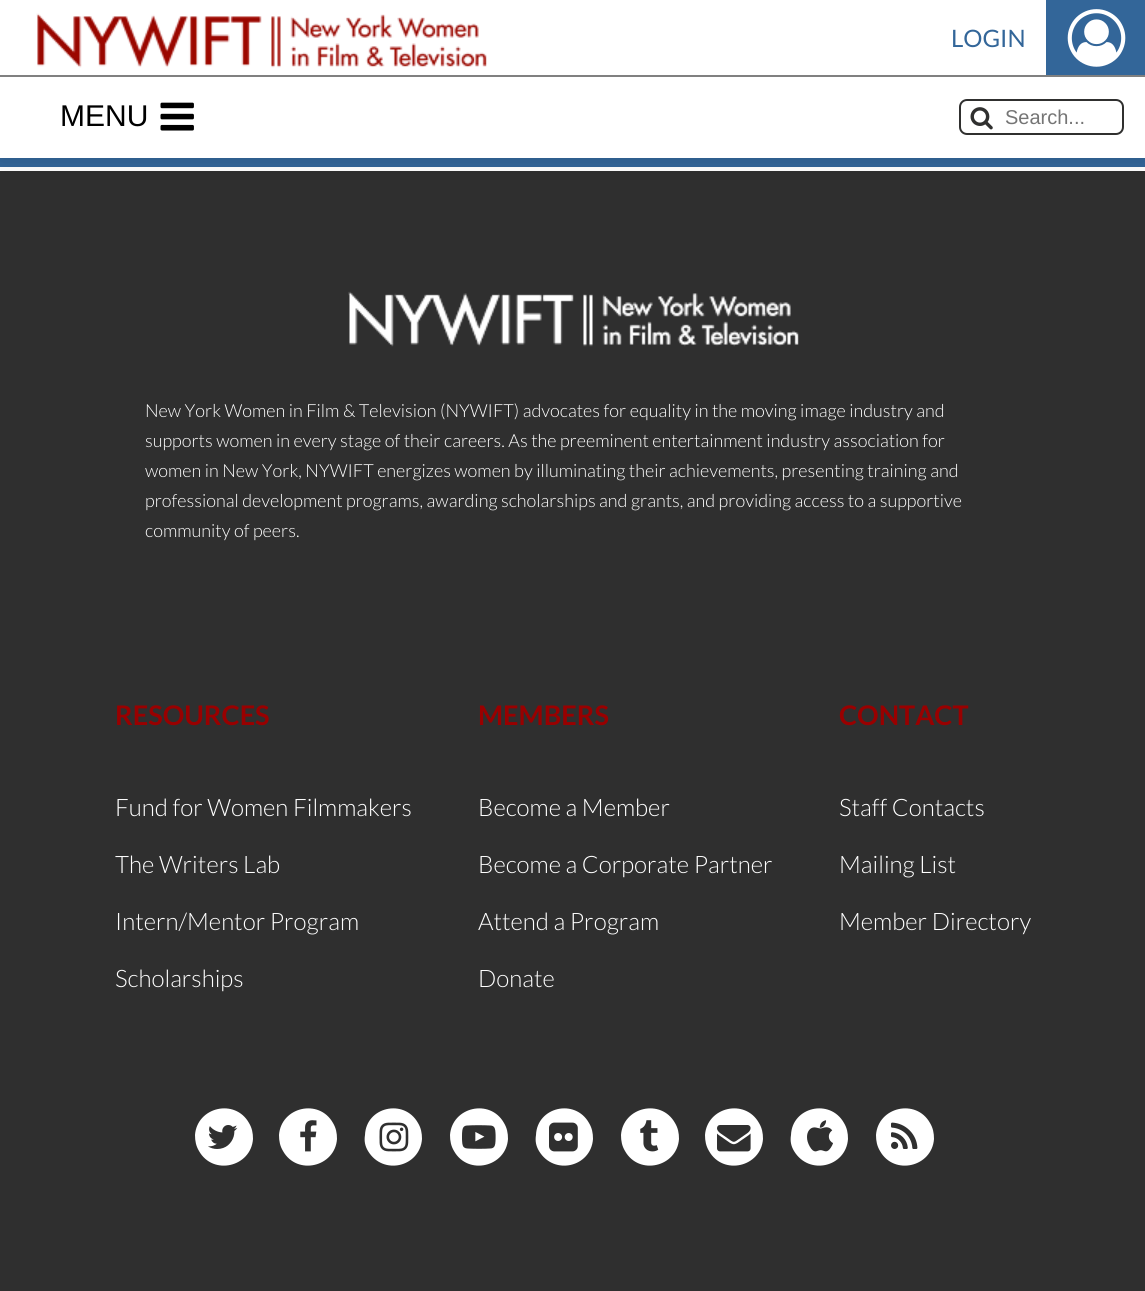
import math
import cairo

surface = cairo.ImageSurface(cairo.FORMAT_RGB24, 1145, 1291)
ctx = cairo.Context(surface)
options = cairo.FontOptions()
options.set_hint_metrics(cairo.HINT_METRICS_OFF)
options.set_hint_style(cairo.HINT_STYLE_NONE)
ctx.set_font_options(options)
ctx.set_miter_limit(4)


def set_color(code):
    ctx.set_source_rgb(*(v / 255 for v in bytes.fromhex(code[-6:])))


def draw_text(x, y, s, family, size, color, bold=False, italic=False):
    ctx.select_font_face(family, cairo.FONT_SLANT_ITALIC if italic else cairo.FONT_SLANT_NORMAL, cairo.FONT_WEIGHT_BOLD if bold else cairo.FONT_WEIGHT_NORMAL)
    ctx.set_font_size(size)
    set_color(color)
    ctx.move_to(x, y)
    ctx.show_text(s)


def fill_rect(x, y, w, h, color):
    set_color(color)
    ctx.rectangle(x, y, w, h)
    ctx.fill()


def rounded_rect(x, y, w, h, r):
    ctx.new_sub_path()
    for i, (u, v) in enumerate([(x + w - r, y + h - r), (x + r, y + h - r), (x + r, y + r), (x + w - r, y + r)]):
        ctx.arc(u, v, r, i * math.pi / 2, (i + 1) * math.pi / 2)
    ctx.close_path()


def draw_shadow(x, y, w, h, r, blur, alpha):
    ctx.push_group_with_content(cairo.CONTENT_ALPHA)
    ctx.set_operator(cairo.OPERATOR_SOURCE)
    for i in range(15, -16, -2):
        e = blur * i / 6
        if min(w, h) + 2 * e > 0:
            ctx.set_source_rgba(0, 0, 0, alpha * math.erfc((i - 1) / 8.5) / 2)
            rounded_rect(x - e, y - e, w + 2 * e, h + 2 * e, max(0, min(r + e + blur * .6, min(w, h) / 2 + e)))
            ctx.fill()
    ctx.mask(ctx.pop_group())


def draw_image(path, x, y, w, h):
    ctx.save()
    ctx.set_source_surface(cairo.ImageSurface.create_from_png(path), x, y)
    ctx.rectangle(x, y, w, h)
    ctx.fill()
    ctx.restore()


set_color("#ffffff")
ctx.paint()
fill_rect(0, 158, 1145, 9, "#336699")
fill_rect(0, 171, 1145, 1120, "#2f2f2f")
set_color("#040404")
draw_shadow(0, 0, 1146, 158, 0, 11, 0.15)
fill_rect(0, 0, 1145, 158, "#ffffff")
fill_rect(0, 75, 1145, 2, "#808080")
draw_image("assets/img1.png", 36, 13, 451, 55)
draw_text(951, 47, "LOGIN", "Lato", 24, "#336699")
fill_rect(1046, 0, 99, 75, "#336699")
draw_image("assets/img2.png", 1067, 9, 59, 58)
draw_text(60, 126, "MENU", "Liberation Sans", 30, "#000000")
draw_image("assets/img3.png", 160, 102, 34, 29)
rounded_rect(960, 100, 163, 34, 7)
set_color("#30302f")
ctx.stroke()
draw_image("assets/img4.png", 970, 107, 23, 23)
draw_text(1005, 124, "Search...", "Liberation Sans", 20, "#757575")
draw_image("assets/img5.png", 348, 291, 451, 56)
draw_text(145, 417, "New York Women in Film & Television (NYWIFT) advocates for equality in the moving image industry and", "Lato Light", 18, "#ffffff")
draw_text(145, 447, "supports women in every stage of their careers. As the preeminent entertainment industry association for", "Lato Light", 18, "#ffffff")
draw_text(145, 477, "women in New York, NYWIFT energizes women by illuminating their achievements, presenting training and", "Lato Light", 18, "#ffffff")
draw_text(145, 507, "professional development programs, awarding scholarships and grants, and providing access to a supportive", "Lato Light", 18, "#ffffff")
draw_text(145, 537, "community of peers.", "Lato Light", 18, "#ffffff")
draw_text(115, 725, "RESOURCES", "Lato", 27, "#990000", bold=True)
draw_text(115, 816, "Fund for Women Filmmakers", "Lato Light", 24, "#ffffff")
draw_text(115, 873, "The Writers Lab", "Lato Light", 24, "#ffffff")
draw_text(115, 930, "Intern/Mentor Program", "Lato Light", 24, "#ffffff")
draw_text(115, 987, "Scholarships", "Lato Light", 24, "#ffffff")
draw_text(478, 725, "MEMBERS", "Lato", 27, "#990000", bold=True)
draw_text(478, 816, "Become a Member", "Lato Light", 24, "#ffffff")
draw_text(478, 873, "Become a Corporate Partner", "Lato Light", 24, "#ffffff")
draw_text(478, 930, "Attend a Program", "Lato Light", 24, "#ffffff")
draw_text(478, 987, "Donate", "Lato Light", 24, "#ffffff")
draw_text(839, 725, "CONTACT", "Lato", 27, "#990000", bold=True)
draw_text(839, 816, "Staff Contacts", "Lato Light", 24, "#ffffff")
draw_text(839, 873, "Mailing List", "Lato Light", 24, "#ffffff")
draw_text(839, 930, "Member Directory", "Lato Light", 24, "#ffffff")
ctx.new_path()
ctx.move_to(249, 1123)
ctx.curve_to(252, 1128, 253, 1133, 253, 1139)
ctx.curve_to(251, 1167, 213, 1176, 199, 1151)
ctx.curve_to(196, 1146, 195, 1141, 195, 1135)
ctx.curve_to(197, 1107, 235, 1098, 249, 1123)
ctx.close_path()
ctx.fill()
draw_image("assets/img6.png", 208, 1125, 30, 24)
ctx.new_path()
ctx.move_to(333, 1123)
ctx.curve_to(336, 1128, 337, 1133, 337, 1139)
ctx.curve_to(335, 1167, 297, 1176, 283, 1151)
ctx.curve_to(280, 1146, 279, 1141, 279, 1135)
ctx.curve_to(281, 1107, 319, 1098, 333, 1123)
ctx.close_path()
ctx.fill()
draw_image("assets/img7.png", 300, 1120, 17, 32)
ctx.new_path()
ctx.move_to(418, 1123)
ctx.curve_to(421, 1128, 422, 1133, 422, 1139)
ctx.curve_to(420, 1167, 383, 1176, 368, 1151)
ctx.curve_to(365, 1146, 364, 1141, 365, 1135)
ctx.curve_to(366, 1107, 404, 1098, 418, 1123)
ctx.close_path()
ctx.fill()
draw_image("assets/img8.png", 379, 1122, 30, 30)
ctx.new_path()
ctx.move_to(504, 1123)
ctx.curve_to(507, 1128, 508, 1133, 508, 1139)
ctx.curve_to(506, 1167, 468, 1176, 454, 1151)
ctx.curve_to(451, 1146, 450, 1141, 450, 1135)
ctx.curve_to(452, 1107, 490, 1098, 504, 1123)
ctx.close_path()
ctx.fill()
draw_image("assets/img9.png", 462, 1125, 34, 24)
ctx.new_path()
ctx.move_to(589, 1123)
ctx.curve_to(592, 1128, 593, 1133, 593, 1139)
ctx.curve_to(591, 1167, 554, 1176, 539, 1151)
ctx.curve_to(536, 1146, 535, 1141, 536, 1135)
ctx.curve_to(537, 1107, 575, 1098, 589, 1123)
ctx.close_path()
ctx.fill()
draw_image("assets/img10.png", 549, 1122, 29, 30)
ctx.new_path()
ctx.move_to(675, 1123)
ctx.curve_to(678, 1128, 679, 1133, 679, 1139)
ctx.curve_to(677, 1167, 639, 1176, 625, 1151)
ctx.curve_to(622, 1146, 621, 1141, 621, 1135)
ctx.curve_to(623, 1107, 661, 1098, 675, 1123)
ctx.close_path()
ctx.fill()
draw_image("assets/img11.png", 640, 1120, 19, 32)
ctx.new_path()
ctx.move_to(759, 1123)
ctx.curve_to(762, 1128, 763, 1133, 763, 1139)
ctx.curve_to(761, 1167, 723, 1176, 709, 1151)
ctx.curve_to(706, 1146, 705, 1141, 705, 1135)
ctx.curve_to(707, 1107, 745, 1098, 759, 1123)
ctx.close_path()
ctx.fill()
draw_image("assets/img12.png", 717, 1125, 34, 27)
ctx.new_path()
ctx.move_to(844, 1123)
ctx.curve_to(847, 1128, 848, 1133, 848, 1139)
ctx.curve_to(846, 1167, 809, 1176, 794, 1151)
ctx.curve_to(791, 1146, 790, 1141, 791, 1135)
ctx.curve_to(792, 1107, 830, 1098, 844, 1123)
ctx.close_path()
ctx.fill()
draw_image("assets/img13.png", 807, 1120, 26, 32)
ctx.new_path()
ctx.move_to(930, 1123)
ctx.curve_to(933, 1128, 934, 1133, 934, 1139)
ctx.curve_to(932, 1167, 894, 1176, 880, 1151)
ctx.curve_to(877, 1146, 876, 1141, 876, 1135)
ctx.curve_to(878, 1107, 916, 1098, 930, 1123)
ctx.close_path()
ctx.fill()
draw_image("assets/img14.png", 891, 1122, 27, 27)
surface.write_to_png("output.png")
